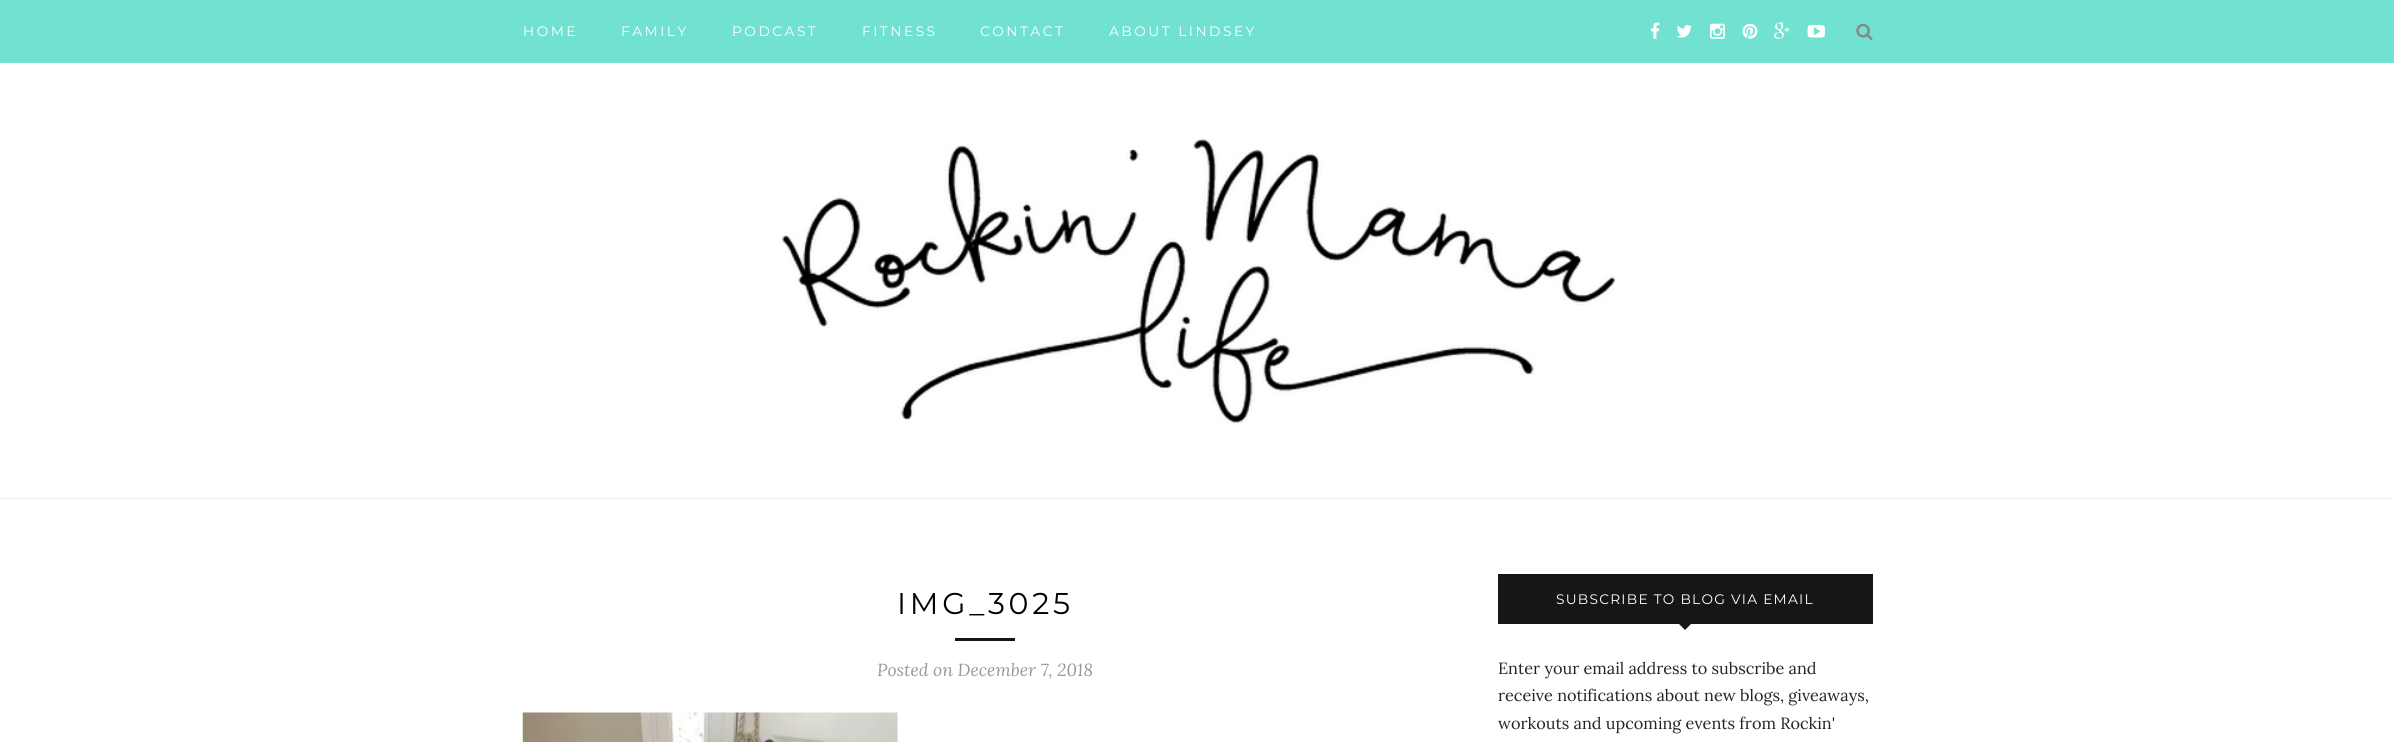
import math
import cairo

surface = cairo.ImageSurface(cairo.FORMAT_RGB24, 2394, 742)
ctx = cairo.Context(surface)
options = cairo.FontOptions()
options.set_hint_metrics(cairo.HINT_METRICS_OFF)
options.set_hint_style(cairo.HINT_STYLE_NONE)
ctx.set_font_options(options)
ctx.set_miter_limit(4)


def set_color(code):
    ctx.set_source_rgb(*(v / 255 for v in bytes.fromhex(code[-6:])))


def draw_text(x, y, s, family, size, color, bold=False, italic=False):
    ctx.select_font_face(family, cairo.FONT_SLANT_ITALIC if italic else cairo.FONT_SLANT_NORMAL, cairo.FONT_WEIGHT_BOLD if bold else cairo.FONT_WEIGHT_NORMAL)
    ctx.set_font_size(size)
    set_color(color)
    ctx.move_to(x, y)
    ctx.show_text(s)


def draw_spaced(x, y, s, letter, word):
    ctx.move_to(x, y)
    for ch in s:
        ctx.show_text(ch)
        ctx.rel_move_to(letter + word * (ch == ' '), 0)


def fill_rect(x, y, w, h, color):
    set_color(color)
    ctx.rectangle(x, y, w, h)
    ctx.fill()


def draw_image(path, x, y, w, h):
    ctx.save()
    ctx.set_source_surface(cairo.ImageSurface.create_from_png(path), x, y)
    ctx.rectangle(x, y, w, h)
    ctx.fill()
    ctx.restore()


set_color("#ffffff")
ctx.paint()
fill_rect(0, 0, 2394, 63, "#71e2d1")
ctx.select_font_face("Montserrat")
ctx.set_font_size(13.75)
set_color("#ffffff")
draw_spaced(523, 36, "HOME", 2.5, 0)
draw_spaced(621, 36, "FAMILY", 2.5, 0)
draw_spaced(732, 36, "PODCAST", 2.5, 0)
draw_spaced(862, 36, "FITNESS", 2.5, 0)
draw_spaced(980, 36, "CONTACT", 2.5, 0)
draw_spaced(1109, 36, "ABOUT LINDSEY", 2.5, 0)
draw_image("assets/img1.png", 1650, 22, 10, 17)
draw_image("assets/img2.png", 1676, 25, 16, 13)
draw_image("assets/img3.png", 1710, 23, 15, 16)
draw_image("assets/img4.png", 1742, 23, 16, 16)
draw_image("assets/img5.png", 1774, 22, 16, 17)
draw_image("assets/img6.png", 1807, 25, 18, 13)
draw_image("assets/img7.png", 1856, 23, 17, 17)
fill_rect(0, 498, 2394, 1, "#eeeeee")
draw_image("assets/img8.png", 780, 138, 836, 287)
ctx.set_font_size(30)
set_color("#000000")
draw_spaced(897, 614, "IMG_3025", 3.75, 0)
fill_rect(955, 638, 60, 3, "#161616")
draw_text(877, 676, "Posted on December 7, 2018", "Lora", 17.5, "#999999", italic=True)
draw_image("assets/img9.png", 522, 712, 376, 30)
fill_rect(1498, 574, 375, 50, "#161616")
ctx.select_font_face("Montserrat")
ctx.set_font_size(13.75)
set_color("#ffffff")
draw_spaced(1556, 604, "SUBSCRIBE TO BLOG VIA EMAIL", 1.25, 0)
set_color("#161616")
ctx.new_path()
ctx.move_to(1679, 624)
ctx.line_to(1691, 624)
ctx.line_to(1685, 630)
ctx.close_path()
ctx.fill()
draw_text(1498, 674, "Enter your email address to subscribe and", "Lora", 16.25, "#242424")
draw_text(1498, 701, "receive notifications about new blogs, giveaways,", "Lora", 16.25, "#242424")
draw_text(1498, 729, "workouts and upcoming events from Rockin'", "Lora", 16.25, "#242424")
surface.write_to_png("output.png")
